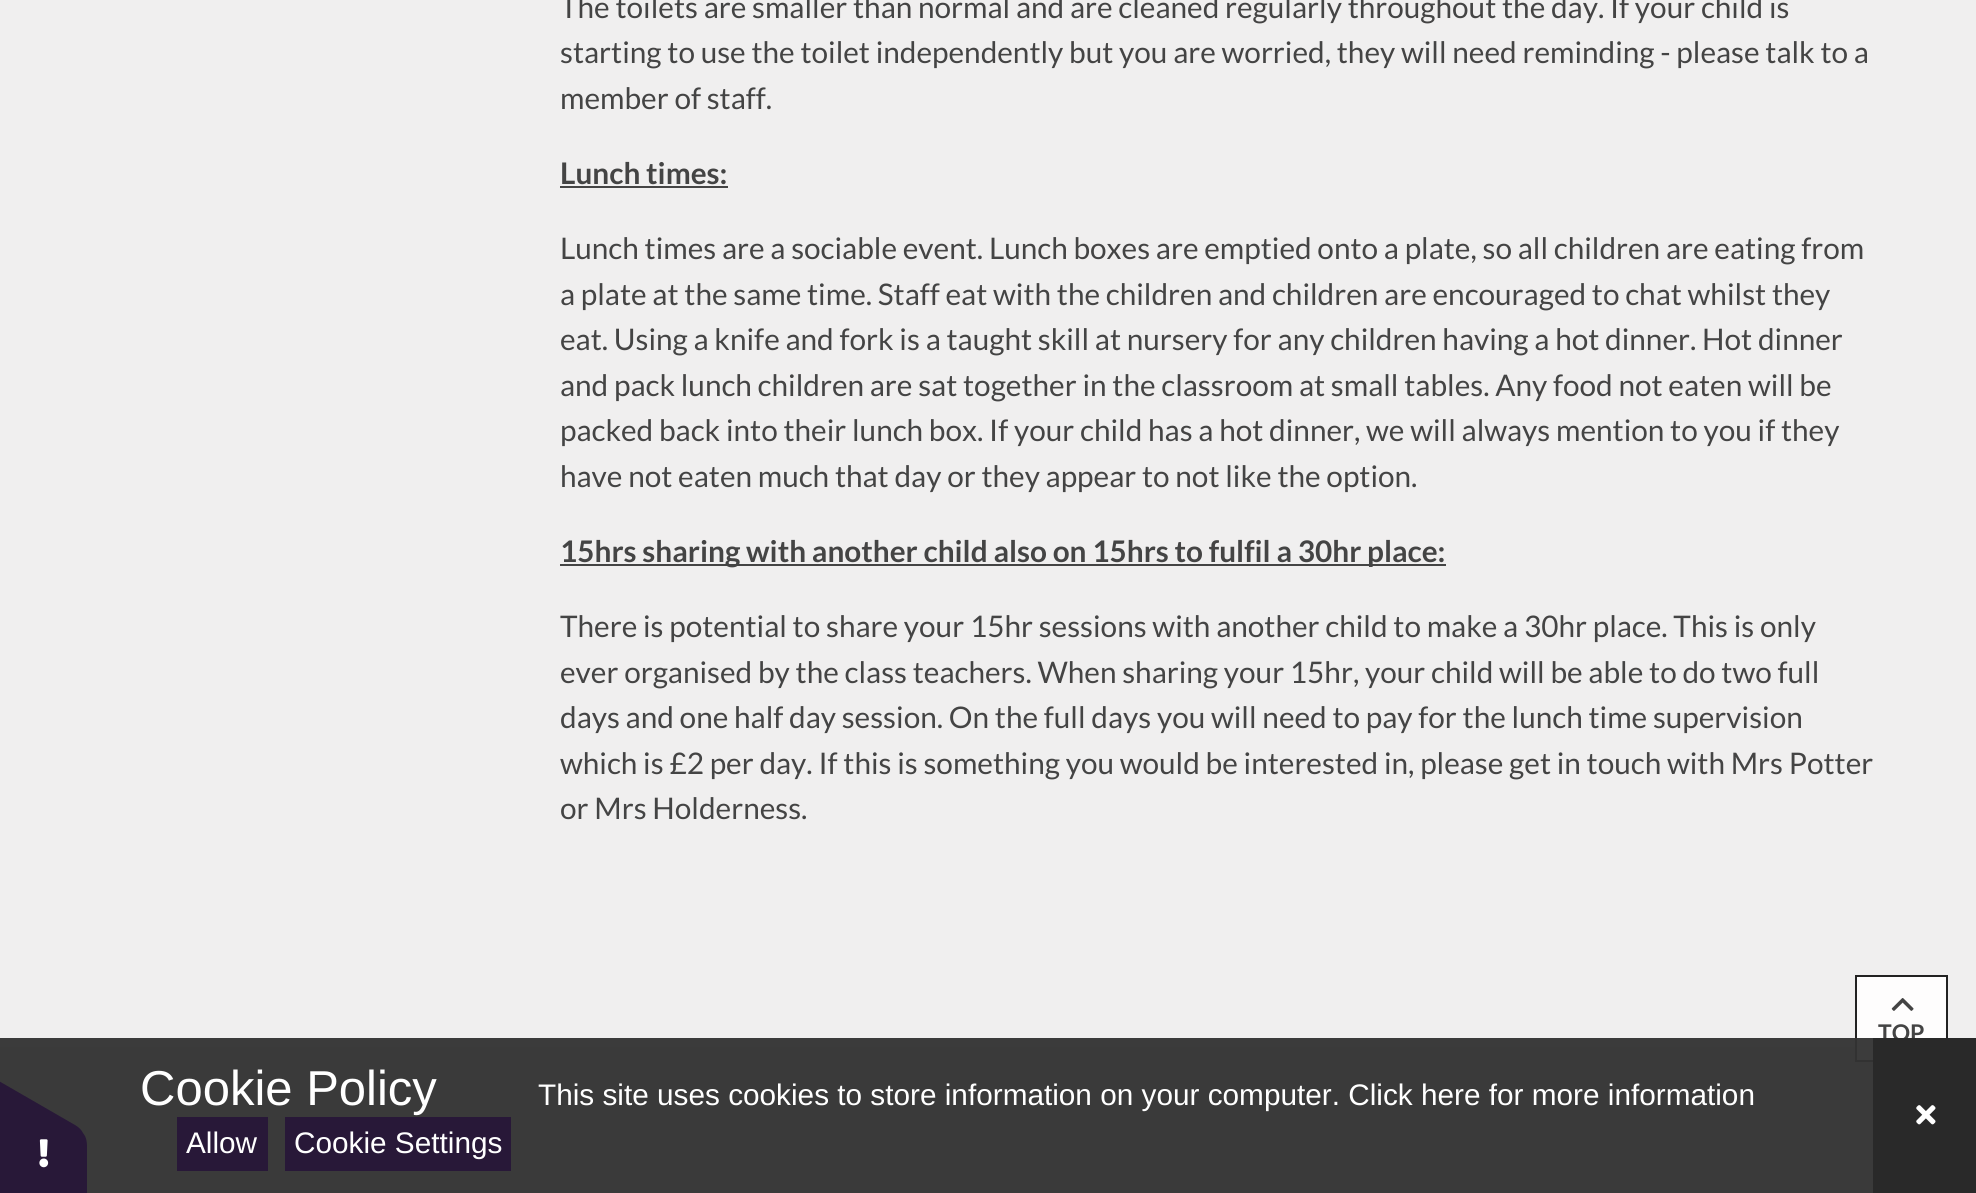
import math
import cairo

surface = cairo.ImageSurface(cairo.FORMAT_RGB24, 1976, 1193)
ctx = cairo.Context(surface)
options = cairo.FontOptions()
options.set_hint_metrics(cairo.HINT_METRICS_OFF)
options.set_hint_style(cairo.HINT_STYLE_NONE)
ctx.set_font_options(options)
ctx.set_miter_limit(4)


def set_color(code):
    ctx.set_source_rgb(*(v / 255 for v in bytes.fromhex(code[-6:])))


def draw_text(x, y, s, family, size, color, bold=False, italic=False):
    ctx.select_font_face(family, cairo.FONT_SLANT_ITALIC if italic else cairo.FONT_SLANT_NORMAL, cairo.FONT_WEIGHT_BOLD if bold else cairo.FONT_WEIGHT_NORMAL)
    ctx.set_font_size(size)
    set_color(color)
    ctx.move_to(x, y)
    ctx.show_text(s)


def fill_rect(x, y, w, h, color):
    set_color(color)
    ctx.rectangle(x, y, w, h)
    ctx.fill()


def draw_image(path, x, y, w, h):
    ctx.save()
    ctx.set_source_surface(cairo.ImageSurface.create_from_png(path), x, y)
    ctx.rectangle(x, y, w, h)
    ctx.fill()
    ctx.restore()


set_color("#f0efef")
ctx.paint()
fill_rect(1857, 977, 89, 70, "#fefdfd")
draw_text(560, 18, "The toilets are smaller than normal and are cleaned regularly throughout the day. If your child is", "Lato", 29.75, "#444444")
draw_text(560, 63, "starting to use the toilet independently but you are worried, they will need reminding - please talk to a", "Lato", 29.75, "#444444")
draw_text(560, 109, "member of staff.", "Lato", 29.75, "#444444")
draw_text(560, 184, "Lunch times:", "Lato", 29.75, "#444444", bold=True)
fill_rect(560, 186, 168, 2, "#444444")
draw_text(560, 259, "Lunch times are a sociable event. Lunch boxes are emptied onto a plate, so all children are eating from", "Lato", 29.75, "#444444")
draw_text(560, 305, "a plate at the same time. Staff eat with the children and children are encouraged to chat whilst they", "Lato", 29.75, "#444444")
draw_text(560, 350, "eat. Using a knife and fork is a taught skill at nursery for any children having a hot dinner. Hot dinner", "Lato", 29.75, "#444444")
draw_text(560, 396, "and pack lunch children are sat together in the classroom at small tables. Any food not eaten will be", "Lato", 29.75, "#444444")
draw_text(560, 441, "packed back into their lunch box. If your child has a hot dinner, we will always mention to you if they", "Lato", 29.75, "#444444")
draw_text(560, 487, "have not eaten much that day or they appear to not like the option.", "Lato", 29.75, "#444444")
fill_rect(560, 564, 886, 2, "#444444")
draw_text(560, 562, "15hrs sharing with another child also on 15hrs to fulfil a 30hr place:", "Lato", 29.75, "#444444", bold=True)
draw_text(560, 637, "There is potential to share your 15hr sessions with another child to make a 30hr place. This is only", "Lato", 29.75, "#444444")
draw_text(560, 683, "ever organised by the class teachers. When sharing your 15hr, your child will be able to do two full", "Lato", 29.75, "#444444")
draw_text(560, 728, "days and one half day session. On the full days you will need to pay for the lunch time supervision", "Lato", 29.75, "#444444")
draw_text(560, 774, "which is £2 per day. If this is something you would be interested in, please get in touch with Mrs Potter", "Lato", 29.75, "#444444")
draw_text(560, 819, "or Mrs Holderness.", "Lato", 29.75, "#444444")
fill_rect(0, 1047, 1873, 146, "#d9d9d9")
fill_rect(1857, 1047, 16, 13, "#fbfbfb")
ctx.rectangle(1856, 976, 91, 85)
set_color("#222222")
ctx.stroke()
draw_image("assets/img1.png", 1891, 998, 23, 13)
draw_text(1878, 1041, "TOP", "Lato", 23, "#444444", bold=True)
ctx.set_source_rgba(0.2, 0.2, 0.2, 0.95)
ctx.rectangle(0, 1038, 1873, 155)
ctx.fill()
set_color("#281838")
ctx.new_path()
ctx.move_to(87, 1146)
ctx.line_to(87, 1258)
ctx.curve_to(87, 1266, 84, 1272, 80, 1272)
ctx.line_to(-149, 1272)
ctx.curve_to(-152, 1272, -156, 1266, -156, 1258)
ctx.line_to(-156, 1146)
ctx.curve_to(-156, 1138, -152, 1132, -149, 1132)
ctx.line_to(80, 1132)
ctx.curve_to(84, 1132, 87, 1138, 87, 1146)
ctx.close_path()
ctx.fill()
ctx.new_path()
ctx.move_to(-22, 1069)
ctx.line_to(75, 1125)
ctx.curve_to(82, 1129, 85, 1135, 83, 1138)
ctx.line_to(-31, 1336)
ctx.curve_to(-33, 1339, -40, 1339, -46, 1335)
ctx.line_to(-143, 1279)
ctx.curve_to(-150, 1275, -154, 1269, -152, 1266)
ctx.line_to(-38, 1068)
ctx.curve_to(-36, 1065, -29, 1065, -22, 1069)
ctx.close_path()
ctx.fill()
draw_image("assets/img2.png", 39, 1139, 10, 29)
draw_text(140, 1105, "Cookie Policy", "Liberation Sans", 49, "#ffffff")
draw_text(538, 1105, "This site uses cookies to store information on your computer. Click here for more information", "Liberation Sans", 29.75, "#ffffff")
fill_rect(177, 1117, 91, 54, "#281838")
draw_text(186, 1153, "Allow", "Liberation Sans", 29.75, "#ffffff")
fill_rect(285, 1117, 226, 54, "#281838")
draw_text(294, 1153, "Cookie Settings", "Liberation Sans", 29.75, "#ffffff")
fill_rect(1873, 1038, 103, 155, "#292929")
draw_image("assets/img3.png", 1916, 1105, 20, 20)
surface.write_to_png("output.png")
